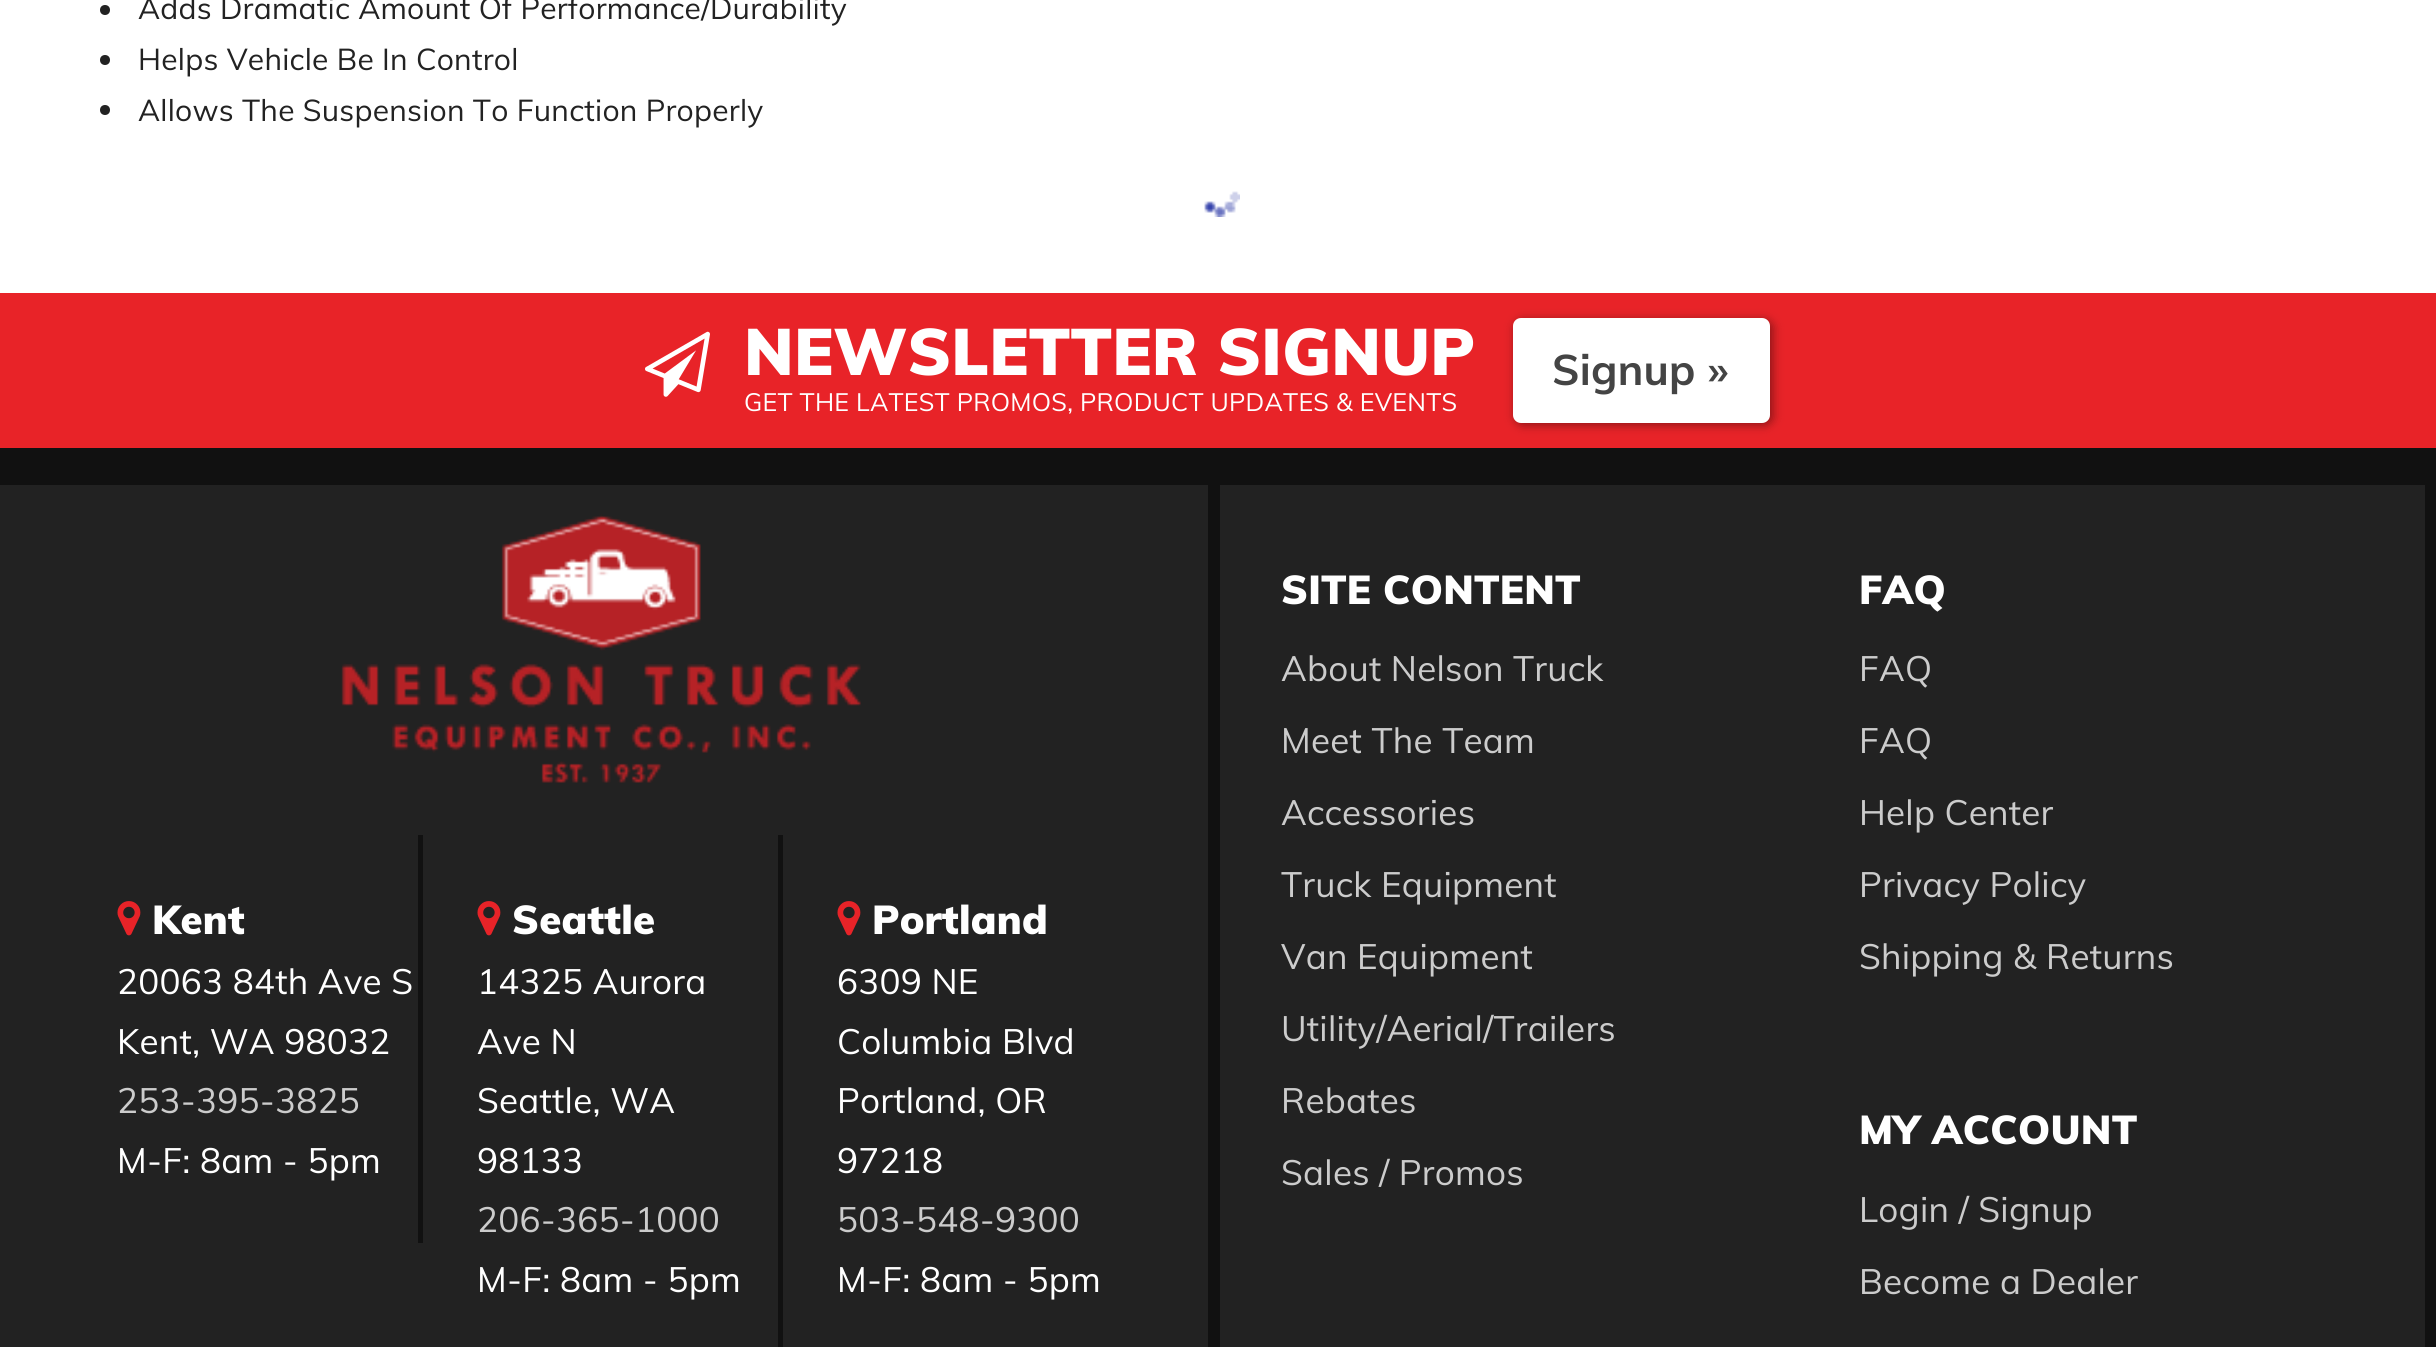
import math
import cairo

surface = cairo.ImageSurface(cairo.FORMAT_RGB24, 2436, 1347)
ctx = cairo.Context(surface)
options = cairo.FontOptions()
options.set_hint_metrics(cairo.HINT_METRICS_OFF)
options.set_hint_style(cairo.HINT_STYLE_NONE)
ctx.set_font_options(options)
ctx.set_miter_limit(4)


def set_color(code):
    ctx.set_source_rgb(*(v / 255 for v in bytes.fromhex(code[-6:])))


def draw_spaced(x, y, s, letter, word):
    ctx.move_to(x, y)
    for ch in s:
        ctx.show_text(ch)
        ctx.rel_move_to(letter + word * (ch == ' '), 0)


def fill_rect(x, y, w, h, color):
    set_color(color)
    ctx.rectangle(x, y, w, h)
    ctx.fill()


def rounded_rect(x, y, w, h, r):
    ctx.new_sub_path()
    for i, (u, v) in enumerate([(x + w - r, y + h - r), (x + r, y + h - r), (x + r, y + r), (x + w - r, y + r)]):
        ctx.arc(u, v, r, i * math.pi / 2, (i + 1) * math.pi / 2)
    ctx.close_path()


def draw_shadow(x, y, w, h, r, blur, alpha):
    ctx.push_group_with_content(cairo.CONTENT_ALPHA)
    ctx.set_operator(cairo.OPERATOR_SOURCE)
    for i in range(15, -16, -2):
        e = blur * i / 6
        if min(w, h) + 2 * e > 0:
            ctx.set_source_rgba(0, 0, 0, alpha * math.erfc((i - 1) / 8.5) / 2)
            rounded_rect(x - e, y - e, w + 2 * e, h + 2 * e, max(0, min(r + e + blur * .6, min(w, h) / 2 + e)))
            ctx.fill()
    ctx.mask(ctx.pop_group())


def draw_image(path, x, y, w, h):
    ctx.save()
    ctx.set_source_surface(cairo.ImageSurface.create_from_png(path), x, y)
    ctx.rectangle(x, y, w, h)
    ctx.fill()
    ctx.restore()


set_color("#ffffff")
ctx.paint()
set_color("#222222")
ctx.arc(105, 10, 5, 0, 2 * math.pi)
ctx.fill()
ctx.select_font_face("Muli")
ctx.set_font_size(30)
draw_spaced(138, 19, "Adds Dramatic Amount Of Performance/Durability", 0.25, 0)
ctx.new_path()
ctx.arc(105, 60, 5, 0, 2 * math.pi)
ctx.fill()
draw_spaced(138, 70, "Helps Vehicle Be In Control", 0.25, 0)
ctx.new_path()
ctx.arc(105, 110, 5, 0, 2 * math.pi)
ctx.fill()
draw_spaced(138, 121, "Allows The Suspension To Function Properly", 0.25, 0)
draw_image("assets/img1.png", 1204, 191, 36, 26)
fill_rect(0, 448, 2436, 37, "#111111")
fill_rect(0, 293, 2436, 155, "#e82328")
draw_image("assets/img2.png", 645, 331, 65, 66)
ctx.select_font_face("Muli Black")
ctx.set_font_size(65)
set_color("#ffffff")
draw_spaced(744, 375, "NEWSLETTER SIGNUP", 0.25, 0)
ctx.select_font_face("Muli")
ctx.set_font_size(25)
draw_spaced(744, 411, "GET THE LATEST PROMOS, PRODUCT UPDATES & EVENTS", 0.25, 0)
set_color("#000000")
draw_shadow(1515, 320, 258, 105, 8, 5, 0.4)
set_color("#ffffff")
rounded_rect(1513, 318, 257, 105, 8)
ctx.fill()
ctx.select_font_face("Muli", cairo.FONT_SLANT_NORMAL, cairo.FONT_WEIGHT_BOLD)
ctx.set_font_size(42.5)
set_color("#444444")
draw_spaced(1552, 385, "Signup »", 0.25, 0)
fill_rect(0, 485, 1208, 862, "#222222")
fill_rect(1208, 485, 12, 862, "#111111")
draw_image("assets/img3.png", 341, 514, 520, 269)
fill_rect(418, 835, 5, 408, "#111111")
draw_image("assets/img4.png", 117, 901, 24, 35)
ctx.select_font_face("Muli Black")
ctx.set_font_size(40)
set_color("#ffffff")
draw_spaced(152, 934, "Kent", 0.25, 0)
ctx.select_font_face("Muli")
ctx.set_font_size(35)
draw_spaced(117, 994, "20063 84th Ave S", 0.25, 0)
draw_spaced(117, 1054, "Kent, WA 98032", 0.25, 0)
set_color("#cccccc")
draw_spaced(117, 1113, "253-395-3825", 0.25, 0)
set_color("#ffffff")
draw_spaced(117, 1173, "M-F: 8am - 5pm", 0.25, 0)
fill_rect(778, 835, 5, 512, "#111111")
draw_image("assets/img4.png", 477, 901, 24, 35)
ctx.select_font_face("Muli Black")
ctx.set_font_size(40)
set_color("#ffffff")
draw_spaced(512, 934, "Seattle", 0.25, 0)
ctx.select_font_face("Muli")
ctx.set_font_size(35)
draw_spaced(477, 994, "14325 Aurora", 0.25, 0)
draw_spaced(477, 1054, "Ave N", 0.25, 0)
draw_spaced(477, 1113, "Seattle, WA", 0.25, 0)
draw_spaced(477, 1173, "98133", 0.25, 0)
set_color("#cccccc")
draw_spaced(477, 1232, "206-365-1000", 0.25, 0)
set_color("#ffffff")
draw_spaced(477, 1292, "M-F: 8am - 5pm", 0.25, 0)
draw_image("assets/img4.png", 837, 901, 24, 35)
ctx.select_font_face("Muli Black")
ctx.set_font_size(40)
draw_spaced(872, 934, "Portland", 0.25, 0)
ctx.select_font_face("Muli")
ctx.set_font_size(35)
draw_spaced(837, 994, "6309 NE", 0.25, 0)
draw_spaced(837, 1054, "Columbia Blvd", 0.25, 0)
draw_spaced(837, 1113, "Portland, OR", 0.25, 0)
draw_spaced(837, 1173, "97218", 0.25, 0)
set_color("#cccccc")
draw_spaced(837, 1232, "503-548-9300", 0.25, 0)
set_color("#ffffff")
draw_spaced(837, 1292, "M-F: 8am - 5pm", 0.25, 0)
fill_rect(1220, 485, 1205, 862, "#222222")
fill_rect(2425, 485, 11, 862, "#111111")
ctx.select_font_face("Muli Black")
ctx.set_font_size(40)
set_color("#ffffff")
draw_spaced(1281, 604, "SITE CONTENT", 0.25, 0)
ctx.select_font_face("Muli")
ctx.set_font_size(35)
set_color("#cccccc")
draw_spaced(1281, 681, "About Nelson Truck", 0.25, 0)
draw_spaced(1281, 753, "Meet The Team", 0.25, 0)
draw_spaced(1281, 825, "Accessories", 0.25, 0)
draw_spaced(1281, 897, "Truck Equipment", 0.25, 0)
draw_spaced(1281, 969, "Van Equipment", 0.25, 0)
draw_spaced(1281, 1041, "Utility/Aerial/Trailers", 0.25, 0)
draw_spaced(1281, 1113, "Rebates", 0.25, 0)
draw_spaced(1281, 1185, "Sales / Promos", 0.25, 0)
ctx.select_font_face("Muli Black")
ctx.set_font_size(40)
set_color("#ffffff")
draw_spaced(1859, 604, "FAQ", 0.25, 0)
ctx.select_font_face("Muli")
ctx.set_font_size(35)
set_color("#cccccc")
draw_spaced(1859, 681, "FAQ", 0.25, 0)
draw_spaced(1859, 753, "FAQ", 0.25, 0)
draw_spaced(1859, 825, "Help Center", 0.25, 0)
draw_spaced(1859, 897, "Privacy Policy", 0.25, 0)
draw_spaced(1859, 969, "Shipping & Returns", 0.25, 0)
ctx.select_font_face("Muli Black")
ctx.set_font_size(40)
set_color("#ffffff")
draw_spaced(1859, 1144, "MY ACCOUNT", 0.25, 0)
ctx.select_font_face("Muli")
ctx.set_font_size(35)
set_color("#cccccc")
draw_spaced(1859, 1222, "Login / Signup", 0.25, 0)
draw_spaced(1859, 1294, "Become a Dealer", 0.25, 0)
surface.write_to_png("output.png")
